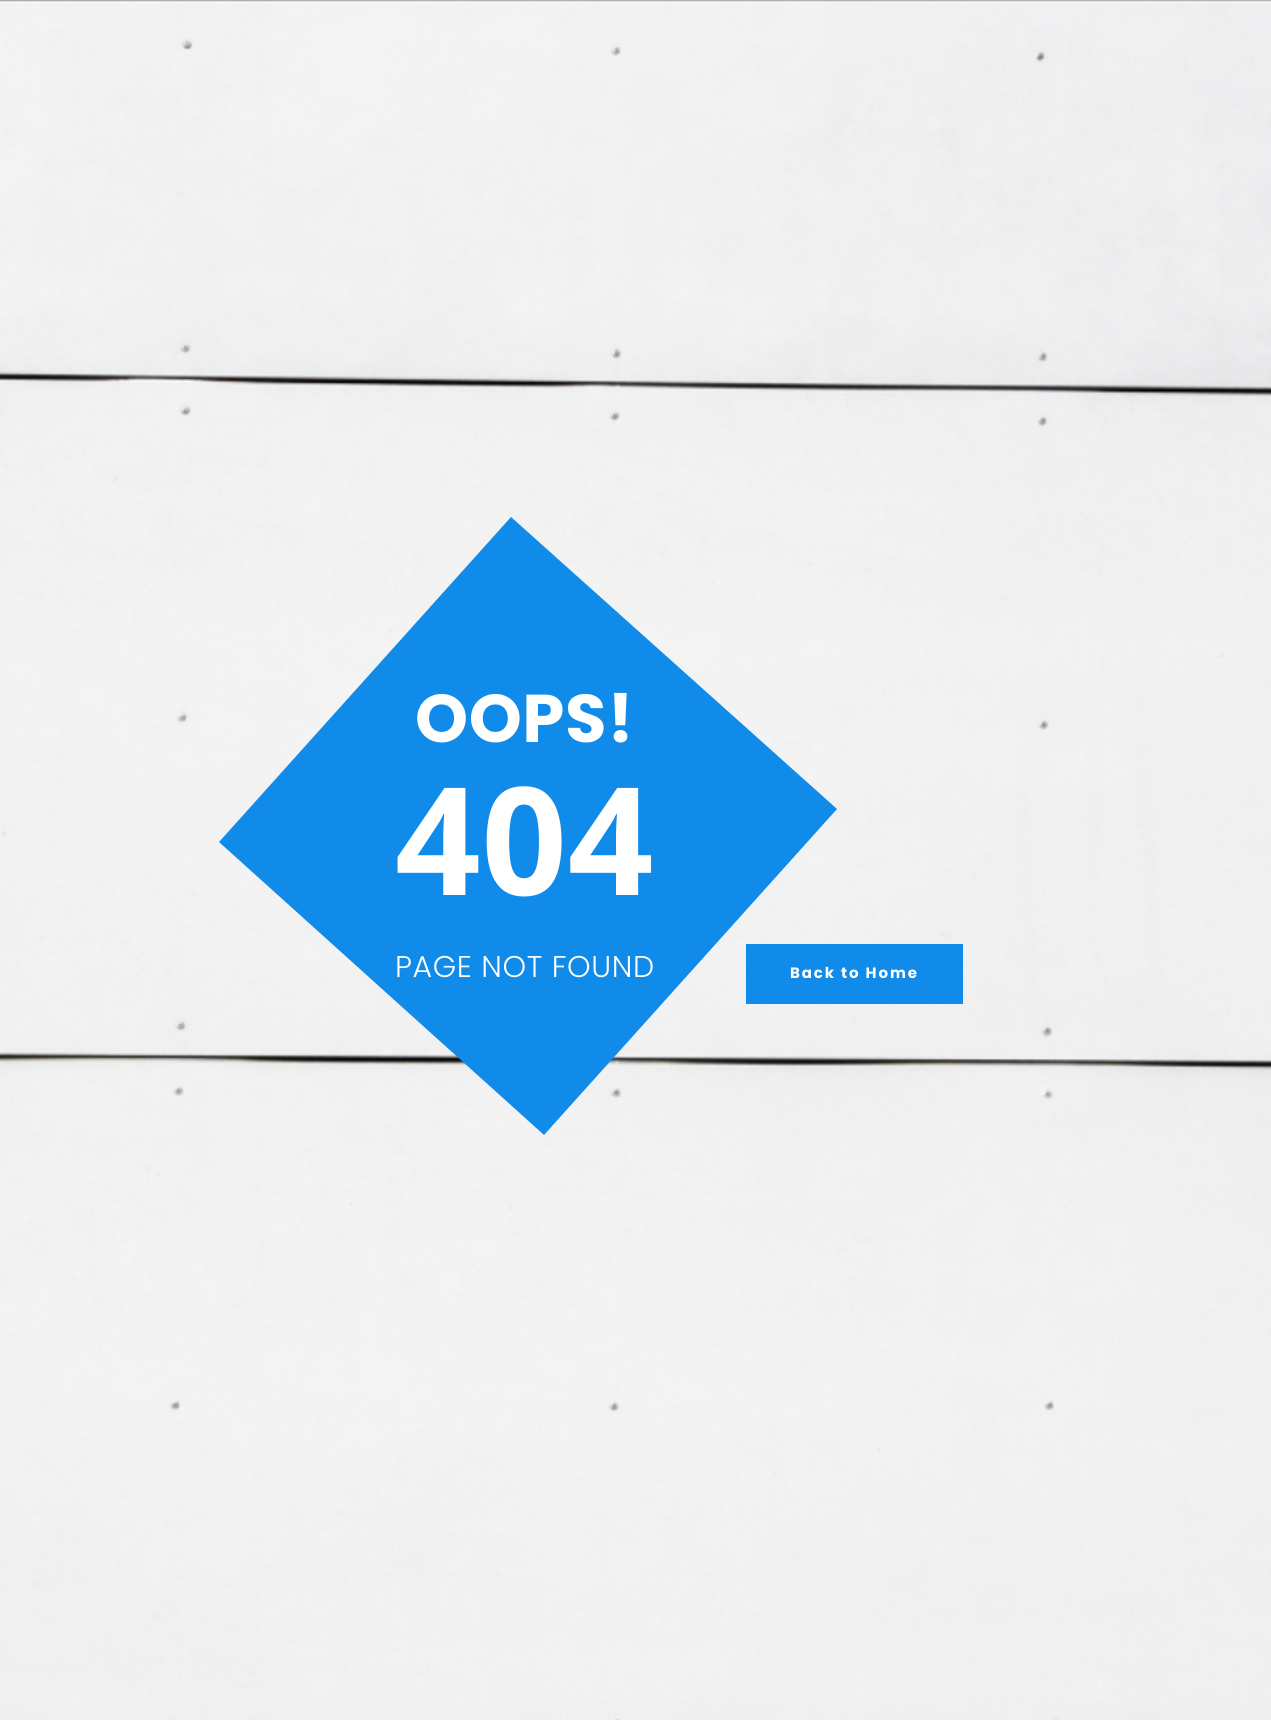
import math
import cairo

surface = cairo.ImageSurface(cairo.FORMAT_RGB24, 1271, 1720)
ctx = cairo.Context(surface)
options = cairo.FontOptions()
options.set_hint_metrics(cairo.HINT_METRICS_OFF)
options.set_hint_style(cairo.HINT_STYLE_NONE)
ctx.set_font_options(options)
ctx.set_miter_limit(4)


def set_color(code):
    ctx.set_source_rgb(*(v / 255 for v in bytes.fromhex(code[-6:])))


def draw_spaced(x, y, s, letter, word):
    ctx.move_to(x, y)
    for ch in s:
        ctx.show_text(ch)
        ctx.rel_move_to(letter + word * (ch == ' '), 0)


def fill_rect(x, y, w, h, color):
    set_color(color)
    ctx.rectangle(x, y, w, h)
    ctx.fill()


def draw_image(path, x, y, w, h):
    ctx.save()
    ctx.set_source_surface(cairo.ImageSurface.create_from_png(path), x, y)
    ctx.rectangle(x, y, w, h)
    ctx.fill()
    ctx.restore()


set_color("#ffffff")
ctx.paint()
draw_image("assets/img1.png", 0, 0, 1271, 1720)
set_color("#108bea")
ctx.new_path()
ctx.move_to(511, 517)
ctx.line_to(837, 809)
ctx.line_to(544, 1135)
ctx.line_to(219, 842)
ctx.close_path()
ctx.fill()
ctx.select_font_face("Poppins", cairo.FONT_SLANT_NORMAL, cairo.FONT_WEIGHT_BOLD)
ctx.set_font_size(67.5)
set_color("#ffffff")
draw_spaced(415, 742, "OOPS!", 0.6, 0)
ctx.select_font_face("Open Sans", cairo.FONT_SLANT_NORMAL, cairo.FONT_WEIGHT_BOLD)
ctx.set_font_size(150)
draw_spaced(395, 895, "404", 0.6, 0)
ctx.select_font_face("Poppins Light")
ctx.set_font_size(30)
draw_spaced(395, 977, "PAGE NOT FOUND", 0.6, 0)
fill_rect(746, 944, 217, 60, "#108bea")
ctx.select_font_face("Poppins", cairo.FONT_SLANT_NORMAL, cairo.FONT_WEIGHT_BOLD)
ctx.set_font_size(15)
set_color("#ffffff")
draw_spaced(790, 978, "Back to Home", 1.9, 0)
surface.write_to_png("output.png")
